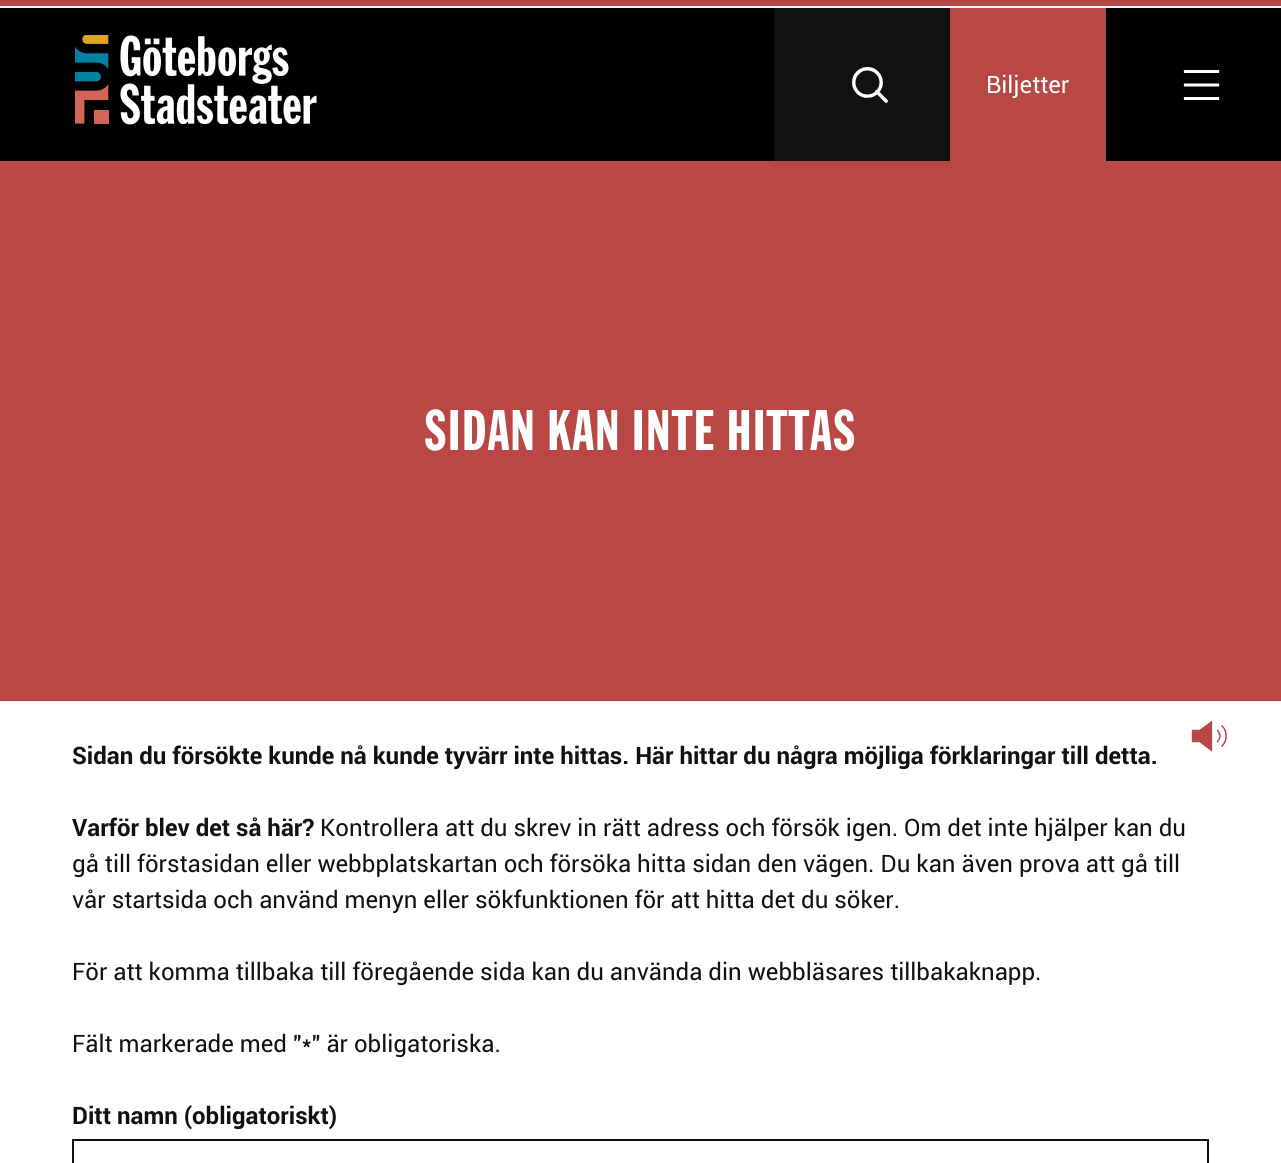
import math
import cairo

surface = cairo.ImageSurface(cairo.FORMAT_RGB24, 1281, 1163)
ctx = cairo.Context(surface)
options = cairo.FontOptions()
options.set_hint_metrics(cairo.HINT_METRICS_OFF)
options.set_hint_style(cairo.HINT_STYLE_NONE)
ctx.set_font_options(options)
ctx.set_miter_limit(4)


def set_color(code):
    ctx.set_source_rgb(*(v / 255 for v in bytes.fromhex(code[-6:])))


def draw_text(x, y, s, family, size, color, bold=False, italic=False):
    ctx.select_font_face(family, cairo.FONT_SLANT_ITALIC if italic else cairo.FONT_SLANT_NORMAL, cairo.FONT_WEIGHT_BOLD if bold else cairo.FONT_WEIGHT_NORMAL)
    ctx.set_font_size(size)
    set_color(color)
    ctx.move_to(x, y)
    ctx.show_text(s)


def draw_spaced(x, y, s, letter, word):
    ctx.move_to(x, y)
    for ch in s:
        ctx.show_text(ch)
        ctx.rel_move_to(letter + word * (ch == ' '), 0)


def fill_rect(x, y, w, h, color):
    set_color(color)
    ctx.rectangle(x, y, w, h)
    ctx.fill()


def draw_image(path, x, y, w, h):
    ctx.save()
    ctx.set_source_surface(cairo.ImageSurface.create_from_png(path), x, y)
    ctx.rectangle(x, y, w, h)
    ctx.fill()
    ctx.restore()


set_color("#ffffff")
ctx.paint()
fill_rect(0, 8, 1281, 153, "#000000")
fill_rect(0, 0, 1281, 6, "#b94744")
draw_image("assets/img1.png", 75, 35, 242, 90)
fill_rect(774, 8, 176, 153, "#111111")
draw_image("assets/img2.png", 852, 67, 36, 36)
fill_rect(950, 8, 156, 153, "#b94744")
draw_text(986, 93, "Biljetter", "Roboto", 24, "#ffffff")
draw_image("assets/img3.png", 1183, 70, 37, 30)
fill_rect(0, 161, 1281, 540, "#b94744")
ctx.select_font_face("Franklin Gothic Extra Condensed")
ctx.set_font_size(60)
set_color("#ffffff")
draw_spaced(424, 450, "SIDAN KAN INTE HITTAS", 1.5, 0)
draw_image("assets/img4.png", 1191, 720, 36, 32)
draw_text(72, 764, "Sidan du försökte kunde nå kunde tyvärr inte hittas. Här hittar du några möjliga förklaringar till detta.", "Roboto", 24, "#111111", bold=True)
draw_text(72, 836, "Varför blev det så här?", "Roboto", 24, "#111111", bold=True)
draw_text(320, 836, "Kontrollera att du skrev in rätt adress och försök igen. Om det inte hjälper kan du", "Roboto", 24, "#111111")
draw_text(72, 872, "gå till förstasidan eller webbplatskartan och försöka hitta sidan den vägen. Du kan även prova att gå till", "Roboto", 24, "#111111")
draw_text(72, 908, "vår startsida och använd menyn eller sökfunktionen för att hitta det du söker.", "Roboto", 24, "#111111")
draw_text(72, 980, "För att komma tillbaka till föregående sida kan du använda din webbläsares tillbakaknapp.", "Roboto", 24, "#111111")
draw_text(72, 1052, "Fält markerade med \"*\" är obligatoriska.", "Roboto", 24, "#111111")
draw_text(72, 1124, "Ditt namn (obligatoriskt)", "Roboto", 24, "#111111", bold=True)
ctx.rectangle(73, 1140, 1135, 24)
ctx.stroke()
surface.write_to_png("output.png")
